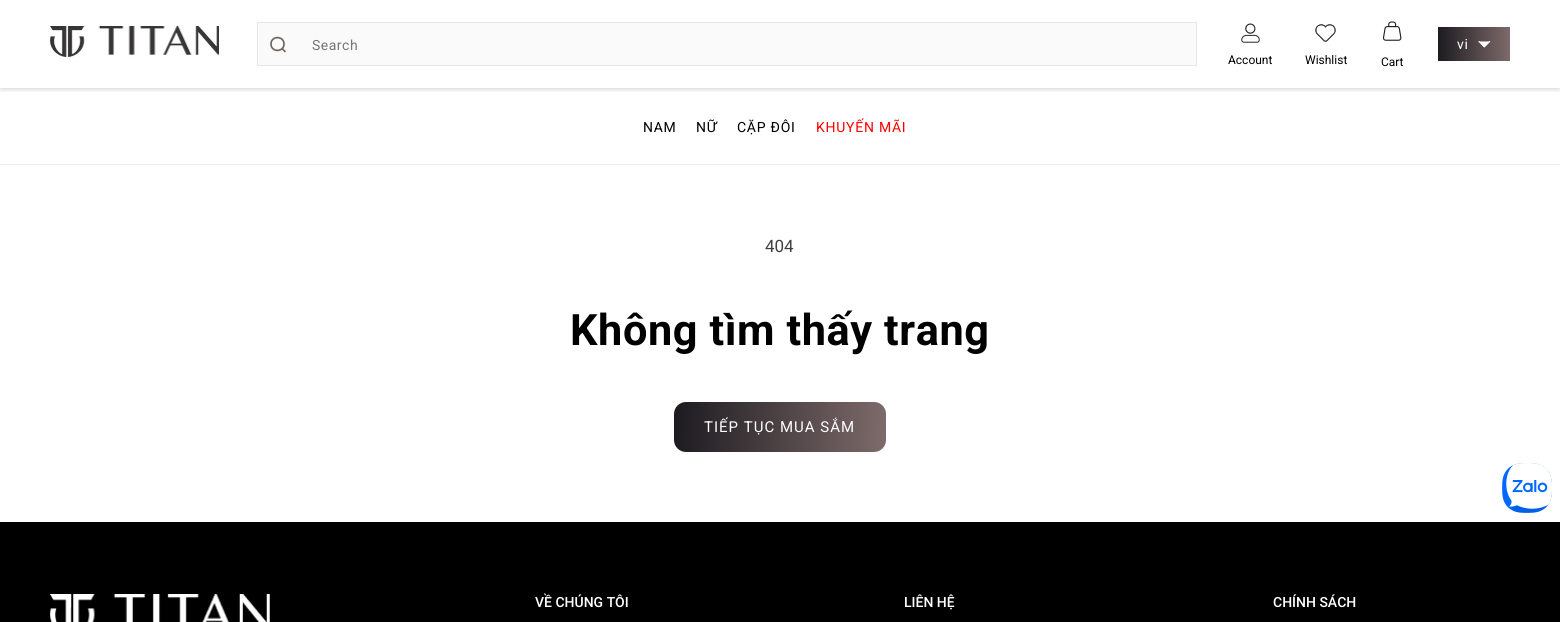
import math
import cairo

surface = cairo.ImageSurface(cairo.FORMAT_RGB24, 1560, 622)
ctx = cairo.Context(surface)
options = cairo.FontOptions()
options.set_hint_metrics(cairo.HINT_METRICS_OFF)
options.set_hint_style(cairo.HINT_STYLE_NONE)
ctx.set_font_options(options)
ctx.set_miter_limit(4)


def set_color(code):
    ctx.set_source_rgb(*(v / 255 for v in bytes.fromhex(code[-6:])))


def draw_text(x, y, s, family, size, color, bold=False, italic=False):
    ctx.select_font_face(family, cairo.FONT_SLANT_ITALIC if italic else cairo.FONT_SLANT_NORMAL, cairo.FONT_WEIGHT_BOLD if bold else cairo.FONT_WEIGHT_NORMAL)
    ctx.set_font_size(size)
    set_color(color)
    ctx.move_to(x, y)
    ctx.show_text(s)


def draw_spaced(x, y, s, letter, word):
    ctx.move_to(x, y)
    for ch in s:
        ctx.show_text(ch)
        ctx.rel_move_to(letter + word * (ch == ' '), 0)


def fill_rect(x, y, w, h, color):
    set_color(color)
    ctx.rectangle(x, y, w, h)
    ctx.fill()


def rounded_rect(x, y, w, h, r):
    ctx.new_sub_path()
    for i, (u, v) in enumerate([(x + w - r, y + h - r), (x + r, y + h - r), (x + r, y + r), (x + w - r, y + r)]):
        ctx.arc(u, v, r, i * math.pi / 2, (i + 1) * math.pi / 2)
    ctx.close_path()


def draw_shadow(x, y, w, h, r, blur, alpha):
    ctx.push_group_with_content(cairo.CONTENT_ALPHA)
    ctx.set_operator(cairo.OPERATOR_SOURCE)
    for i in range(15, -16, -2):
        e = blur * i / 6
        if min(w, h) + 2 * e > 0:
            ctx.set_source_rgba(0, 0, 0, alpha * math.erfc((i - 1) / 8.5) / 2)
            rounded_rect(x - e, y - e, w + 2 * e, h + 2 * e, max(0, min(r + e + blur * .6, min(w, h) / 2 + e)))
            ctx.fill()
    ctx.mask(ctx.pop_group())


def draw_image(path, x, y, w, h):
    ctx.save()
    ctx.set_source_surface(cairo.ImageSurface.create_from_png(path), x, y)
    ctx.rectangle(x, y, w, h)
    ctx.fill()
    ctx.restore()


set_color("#ffffff")
ctx.paint()
fill_rect(0, 164, 1560, 1, "#ebebeb")
ctx.save()
ctx.rectangle(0, 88, 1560, 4)
ctx.clip()
set_color("#000000")
draw_shadow(0, 2, 1560, 88, 0, 2, 0.14)
ctx.restore()
draw_image("assets/img1.png", 50, 26, 169, 31)
set_color("#fbfafa")
ctx.rectangle(257.5, 22.5, 939, 43)
ctx.fill_preserve()
set_color("#e6e6e6")
ctx.set_line_width(1)
ctx.stroke()
ctx.new_path()
ctx.move_to(282, 48.5)
ctx.line_to(285, 51.5)
ctx.move_to(284, 44)
ctx.curve_to(284, 52.5, 271, 52.5, 271, 44)
ctx.curve_to(271, 35.5, 284, 35.5, 284, 44)
ctx.close_path()
set_color("#706660")
ctx.set_line_width(1.7)
ctx.set_line_cap(cairo.LINE_CAP_ROUND)
ctx.stroke()
ctx.select_font_face("Roboto")
ctx.set_font_size(14)
set_color("#757575")
draw_spaced(312, 50, "Search", 0.5, 0)
gradient = cairo.LinearGradient(1438, 44, 1510, 44)
gradient.add_color_stop_rgba(0.01, 0.114, 0.11, 0.129, 1)
gradient.add_color_stop_rgba(1, 0.494, 0.416, 0.416, 1)
ctx.set_source(gradient)
ctx.rectangle(1438, 27, 72, 34)
ctx.fill()
set_color("#ffffff")
draw_spaced(1457, 49, "vi", 0.6, 0)
draw_image("assets/img2.png", 1478, 41, 13, 7)
draw_image("assets/img3.png", 1241, 23, 19, 20)
draw_text(1228, 64, "Account", "Roboto", 12, "#000000")
draw_image("assets/img4.png", 1315, 24, 21, 18)
draw_text(1305, 64, "Wishlist", "Roboto", 12, "#000000")
draw_image("assets/img5.png", 1382, 21, 20, 20)
draw_text(1381, 66, "Cart", "Roboto", 12, "#000000")
ctx.set_font_size(14)
draw_spaced(643, 132, "NAM", 0.75, 0)
draw_spaced(696, 132, "NỮ", 0.75, 0)
draw_spaced(737, 132, "CẶP ĐÔI", 0.75, 0)
set_color("#ff0000")
draw_spaced(816, 132, "KHUYẾN MÃI", 0.75, 0)
draw_text(765, 252, "404", "Roboto", 17, "#404040")
ctx.select_font_face("Roboto", cairo.FONT_SLANT_NORMAL, cairo.FONT_WEIGHT_BOLD)
ctx.set_font_size(43.25)
set_color("#000000")
draw_spaced(570, 345, "Không tìm thấy trang", 0.6, 0)
gradient = cairo.LinearGradient(674, 425, 886, 429)
gradient.add_color_stop_rgba(0.01, 0.114, 0.11, 0.129, 1)
gradient.add_color_stop_rgba(1, 0.494, 0.416, 0.416, 1)
ctx.set_source(gradient)
rounded_rect(674, 402, 212, 50, 12)
ctx.fill()
ctx.select_font_face("Roboto")
ctx.set_font_size(15)
set_color("#ffffff")
draw_spaced(704, 432, "TIẾP TỤC MUA SẮM", 1, 0)
draw_image("assets/img6.png", 1502, 463, 50, 50)
fill_rect(0, 522, 1560, 100, "#000000")
draw_image("assets/img7.png", 50, 594, 220, 28)
draw_text(535, 607, "VỀ CHÚNG TÔI", "Roboto Medium", 14, "#ffffff")
draw_text(904, 607, "LIÊN HỆ", "Roboto Medium", 14, "#ffffff")
draw_text(1273, 607, "CHÍNH SÁCH", "Roboto Medium", 14, "#ffffff")
surface.write_to_png("output.png")
